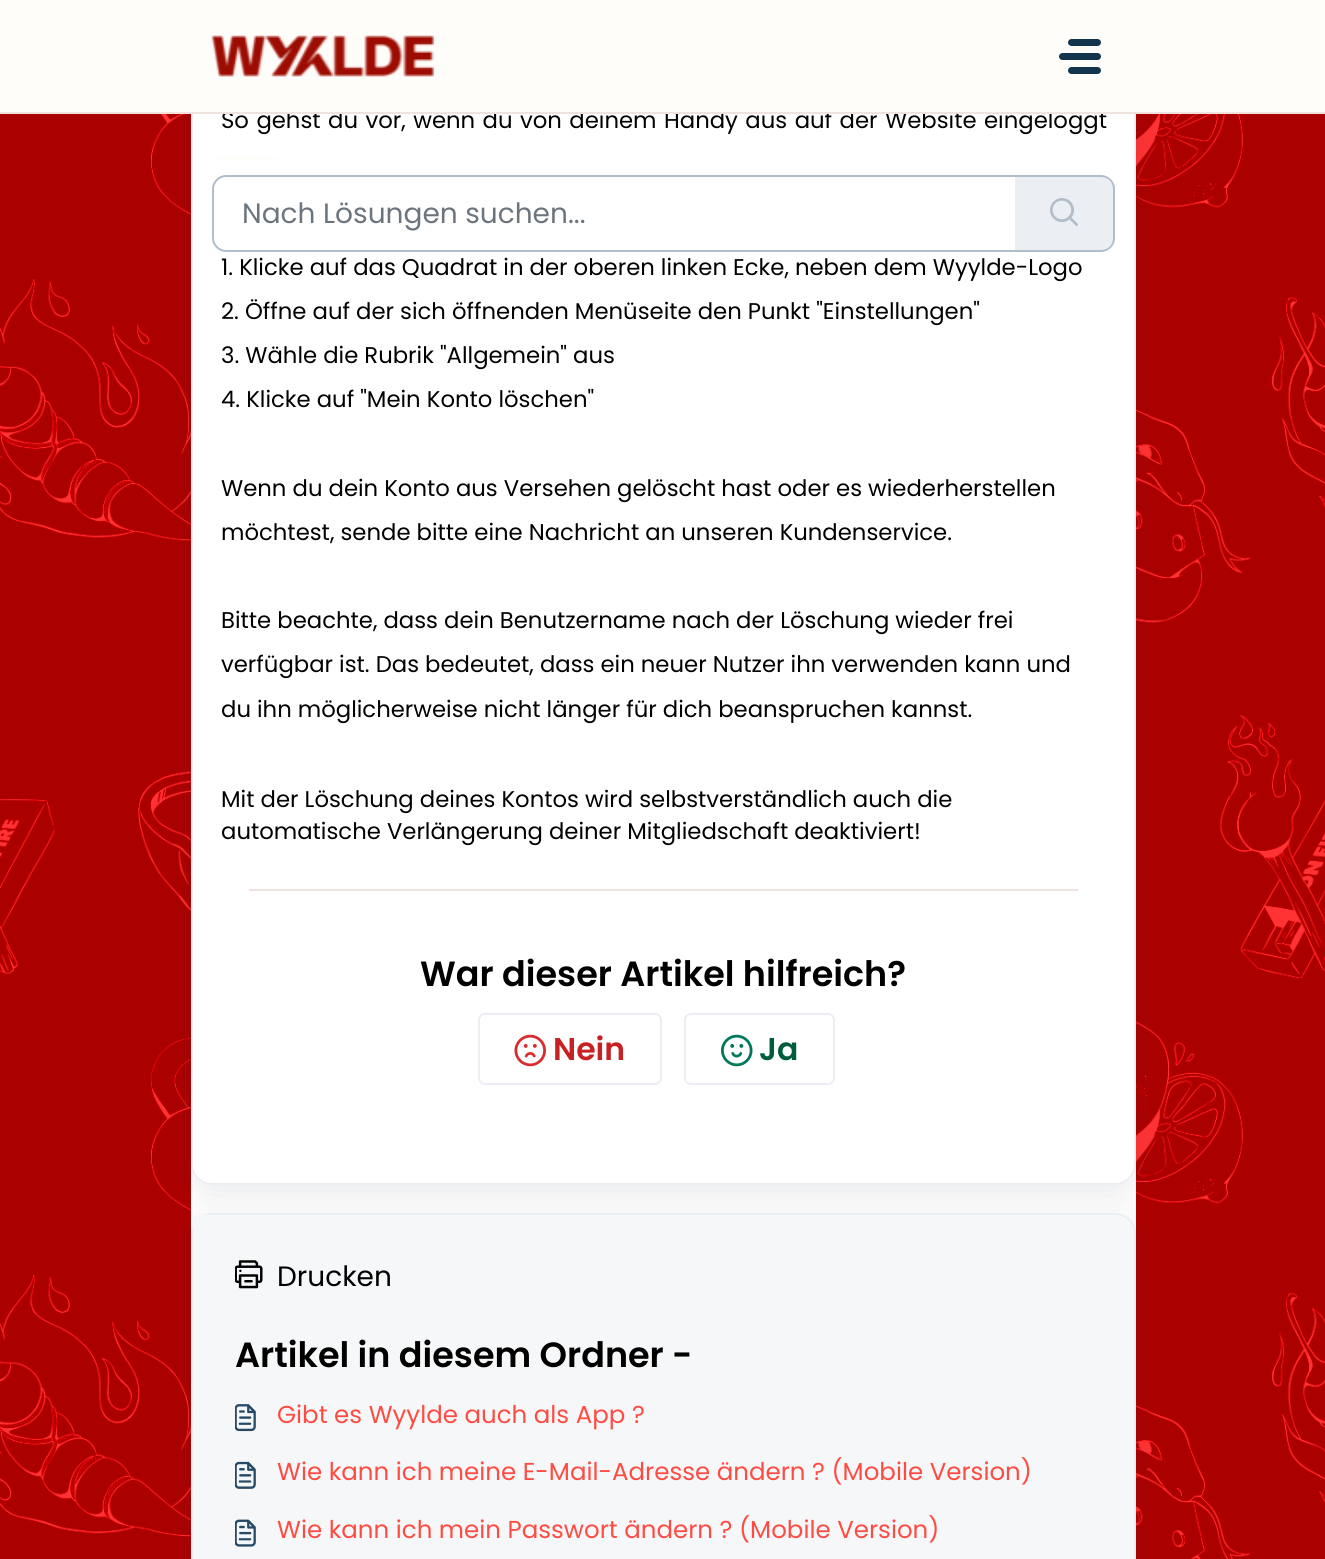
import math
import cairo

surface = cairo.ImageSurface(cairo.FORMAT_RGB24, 1325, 1559)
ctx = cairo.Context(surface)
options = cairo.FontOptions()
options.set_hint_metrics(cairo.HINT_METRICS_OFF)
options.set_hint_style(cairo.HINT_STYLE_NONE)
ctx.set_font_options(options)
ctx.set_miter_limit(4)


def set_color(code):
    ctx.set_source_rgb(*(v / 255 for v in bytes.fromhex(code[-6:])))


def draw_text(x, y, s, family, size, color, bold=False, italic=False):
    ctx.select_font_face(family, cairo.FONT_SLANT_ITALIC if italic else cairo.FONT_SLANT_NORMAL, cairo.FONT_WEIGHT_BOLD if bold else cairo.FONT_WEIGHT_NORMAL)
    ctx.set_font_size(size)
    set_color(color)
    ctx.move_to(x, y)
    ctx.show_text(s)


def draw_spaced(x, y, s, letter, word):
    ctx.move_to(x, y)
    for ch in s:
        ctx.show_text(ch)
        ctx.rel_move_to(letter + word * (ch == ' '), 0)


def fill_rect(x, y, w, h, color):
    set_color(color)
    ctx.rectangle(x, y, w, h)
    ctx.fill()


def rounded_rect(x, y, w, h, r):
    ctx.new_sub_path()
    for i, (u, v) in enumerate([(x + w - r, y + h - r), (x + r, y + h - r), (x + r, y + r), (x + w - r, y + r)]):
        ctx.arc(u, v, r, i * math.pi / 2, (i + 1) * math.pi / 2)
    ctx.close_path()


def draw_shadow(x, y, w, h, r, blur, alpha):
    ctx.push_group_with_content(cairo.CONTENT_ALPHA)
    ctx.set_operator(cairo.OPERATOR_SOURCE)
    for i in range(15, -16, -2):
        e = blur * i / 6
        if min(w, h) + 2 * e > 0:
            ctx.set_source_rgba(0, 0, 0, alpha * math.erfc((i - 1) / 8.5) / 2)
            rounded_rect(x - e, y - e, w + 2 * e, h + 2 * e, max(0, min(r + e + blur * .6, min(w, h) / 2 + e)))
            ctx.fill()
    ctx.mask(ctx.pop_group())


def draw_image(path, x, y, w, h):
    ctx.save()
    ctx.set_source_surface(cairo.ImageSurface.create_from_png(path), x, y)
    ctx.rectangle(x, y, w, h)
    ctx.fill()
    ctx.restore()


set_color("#ffffff")
ctx.paint()
draw_image("assets/img2.png", 0, 114, 1325, 1445)
fill_rect(191, 114, 945, 1122, "#ffffff")
ctx.save()
ctx.set_fill_rule(cairo.FILL_RULE_EVEN_ODD)
ctx.new_path()
ctx.move_to(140, 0)
ctx.line_to(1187, 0)
ctx.line_to(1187, 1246)
ctx.line_to(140, 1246)
ctx.close_path()
ctx.move_to(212, -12)
ctx.line_to(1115, -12)
ctx.curve_to(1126.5, -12, 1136, -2.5, 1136, 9)
ctx.line_to(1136, 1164)
ctx.curve_to(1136, 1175.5, 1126.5, 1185, 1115, 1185)
ctx.line_to(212, 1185)
ctx.curve_to(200.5, 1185, 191, 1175.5, 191, 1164)
ctx.line_to(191, 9)
ctx.curve_to(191, -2.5, 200.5, -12, 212, -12)
ctx.close_path()
ctx.clip()
set_color("#27313a")
draw_shadow(191, -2, 945, 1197, 21, 16.5, 0.1)
ctx.restore()
rounded_rect(192, -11, 943, 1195, 20)
set_color("#ebeff3")
ctx.stroke()
ctx.select_font_face("Poppins")
ctx.set_font_size(22.75)
set_color("#000000")
draw_spaced(221, 128, "So gehst du vor, wenn du von deinem Handy aus auf der Website eingeloggt", 0, 1.4)
fill_rect(0, 0, 1325, 112, "#fffdfa")
fill_rect(0, 112, 1325, 2, "#f0e3de")
draw_image("assets/img1.png", 211, 35, 223, 42)
set_color("#12344d")
rounded_rect(1068, 39, 33, 7, 3.5)
ctx.fill()
rounded_rect(1059, 53, 42, 7, 3.5)
ctx.fill()
rounded_rect(1068, 67, 33, 7, 3.5)
ctx.fill()
draw_text(221, 275, "1. Klicke auf das Quadrat in der oberen linken Ecke, neben dem Wyylde-Logo", "Poppins", 22.75, "#000000")
draw_text(221, 319, "2. Öffne auf der sich öffnenden Menüseite den Punkt \"Einstellungen\"", "Poppins", 22.75, "#000000")
draw_text(221, 363, "3. Wähle die Rubrik \"Allgemein\" aus", "Poppins", 22.75, "#000000")
draw_text(221, 407, "4. Klicke auf \"Mein Konto löschen\"", "Poppins", 22.75, "#000000")
draw_text(221, 496, "Wenn du dein Konto aus Versehen gelöscht hast oder es wiederherstellen", "Poppins", 22.75, "#000000")
draw_text(221, 540, "möchtest, sende bitte eine Nachricht an unseren Kundenservice.", "Poppins", 22.75, "#000000")
draw_text(221, 628, "Bitte beachte, dass dein Benutzername nach der Löschung wieder frei", "Poppins", 22.75, "#000000")
draw_text(221, 672, "verfügbar ist. Das bedeutet, dass ein neuer Nutzer ihn verwenden kann und", "Poppins", 22.75, "#000000")
draw_text(221, 717, "du ihn möglicherweise nicht länger für dich beanspruchen kannst.", "Poppins", 22.75, "#000000")
draw_text(221, 807, "Mit der Löschung deines Kontos wird selbstverständlich auch die", "Poppins", 22.75, "#000000")
draw_text(221, 839, "automatische Verlängerung deiner Mitgliedschaft deaktiviert!", "Poppins", 22.75, "#000000")
fill_rect(249, 889, 829, 2, "#f0e3de")
draw_text(420, 986, "War dieser Artikel hilfreich?", "Poppins SemiBold", 35, "#000000")
rounded_rect(479, 1014, 182, 70, 6)
set_color("#ebeff3")
ctx.stroke()
draw_image("assets/img3.png", 514, 1034, 32, 33)
draw_text(553, 1060, "Nein", "Poppins SemiBold", 31.5, "#c82124")
rounded_rect(685, 1014, 149, 70, 6)
set_color("#ebeff3")
ctx.stroke()
draw_image("assets/img4.png", 721, 1034, 32, 33)
draw_text(759, 1060, "Ja", "Poppins SemiBold", 31.5, "#005c3f")
set_color("#27313a")
draw_shadow(191, 1223, 945, 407, 21, 16.5, 0.1)
rounded_rect(192, 1214, 943, 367, 20)
set_color("#ebeff3")
ctx.stroke()
set_color("#f5f7f9")
ctx.new_path()
ctx.move_to(193, 1215)
ctx.line_to(1113, 1215)
ctx.curve_to(1124.5, 1215, 1134, 1224.5, 1134, 1236)
ctx.line_to(1134, 1559)
ctx.curve_to(1134, 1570.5, 1124.5, 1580, 1113, 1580)
ctx.line_to(193, 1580)
ctx.close_path()
ctx.fill()
draw_image("assets/img5.png", 235, 1260, 28, 29)
draw_text(277, 1286, "Drucken", "Poppins", 28, "#000000")
draw_text(235, 1367, "Artikel in diesem Ordner -", "Poppins SemiBold", 35, "#000000")
draw_image("assets/img6.png", 235, 1404, 21, 28)
draw_text(277, 1423, "Gibt es Wyylde auch als App ?", "Poppins", 24.5, "#ff4c42")
draw_image("assets/img7.png", 235, 1461, 21, 28)
draw_text(277, 1480, "Wie kann ich meine E-Mail-Adresse ändern ? (Mobile Version)", "Poppins", 24.5, "#ff4c42")
draw_image("assets/img8.png", 235, 1519, 21, 28)
draw_text(277, 1538, "Wie kann ich mein Passwort ändern ? (Mobile Version)", "Poppins", 24.5, "#ff4c42")
fill_rect(212, 158, 66, 2, "#fffdfa")
ctx.new_path()
ctx.move_to(226, 176)
ctx.line_to(1016, 176)
ctx.line_to(1016, 251)
ctx.line_to(226, 251)
ctx.curve_to(219, 251, 213, 245, 213, 238)
ctx.line_to(213, 189)
ctx.curve_to(213, 182, 219, 176, 226, 176)
ctx.close_path()
set_color("#b1bdc8")
ctx.stroke()
draw_text(242, 223, "Nach Lösungen suchen...", "Poppins", 28, "#6c757d")
set_color("#ebeff3")
ctx.new_path()
ctx.move_to(1015, 175)
ctx.line_to(1101, 175)
ctx.curve_to(1108.5, 175, 1115, 181.5, 1115, 189)
ctx.line_to(1115, 238)
ctx.curve_to(1115, 245.5, 1108.5, 252, 1101, 252)
ctx.line_to(1015, 252)
ctx.close_path()
ctx.fill()
set_color("#b1bdc8")
ctx.set_fill_rule(cairo.FILL_RULE_EVEN_ODD)
ctx.new_path()
ctx.move_to(1015, 175)
ctx.line_to(1101, 175)
ctx.curve_to(1108, 175, 1115, 181, 1115, 189)
ctx.line_to(1115, 238)
ctx.curve_to(1115, 246, 1108, 252, 1101, 252)
ctx.line_to(1015, 252)
ctx.close_path()
ctx.move_to(1015, 177)
ctx.line_to(1101, 177)
ctx.curve_to(1108, 177, 1113, 182, 1113, 189)
ctx.line_to(1113, 238)
ctx.curve_to(1113, 245, 1108, 250, 1101, 250)
ctx.line_to(1015, 250)
ctx.close_path()
ctx.fill()
draw_image("assets/img9.png", 1050, 198, 28, 28)
surface.write_to_png("output.png")
